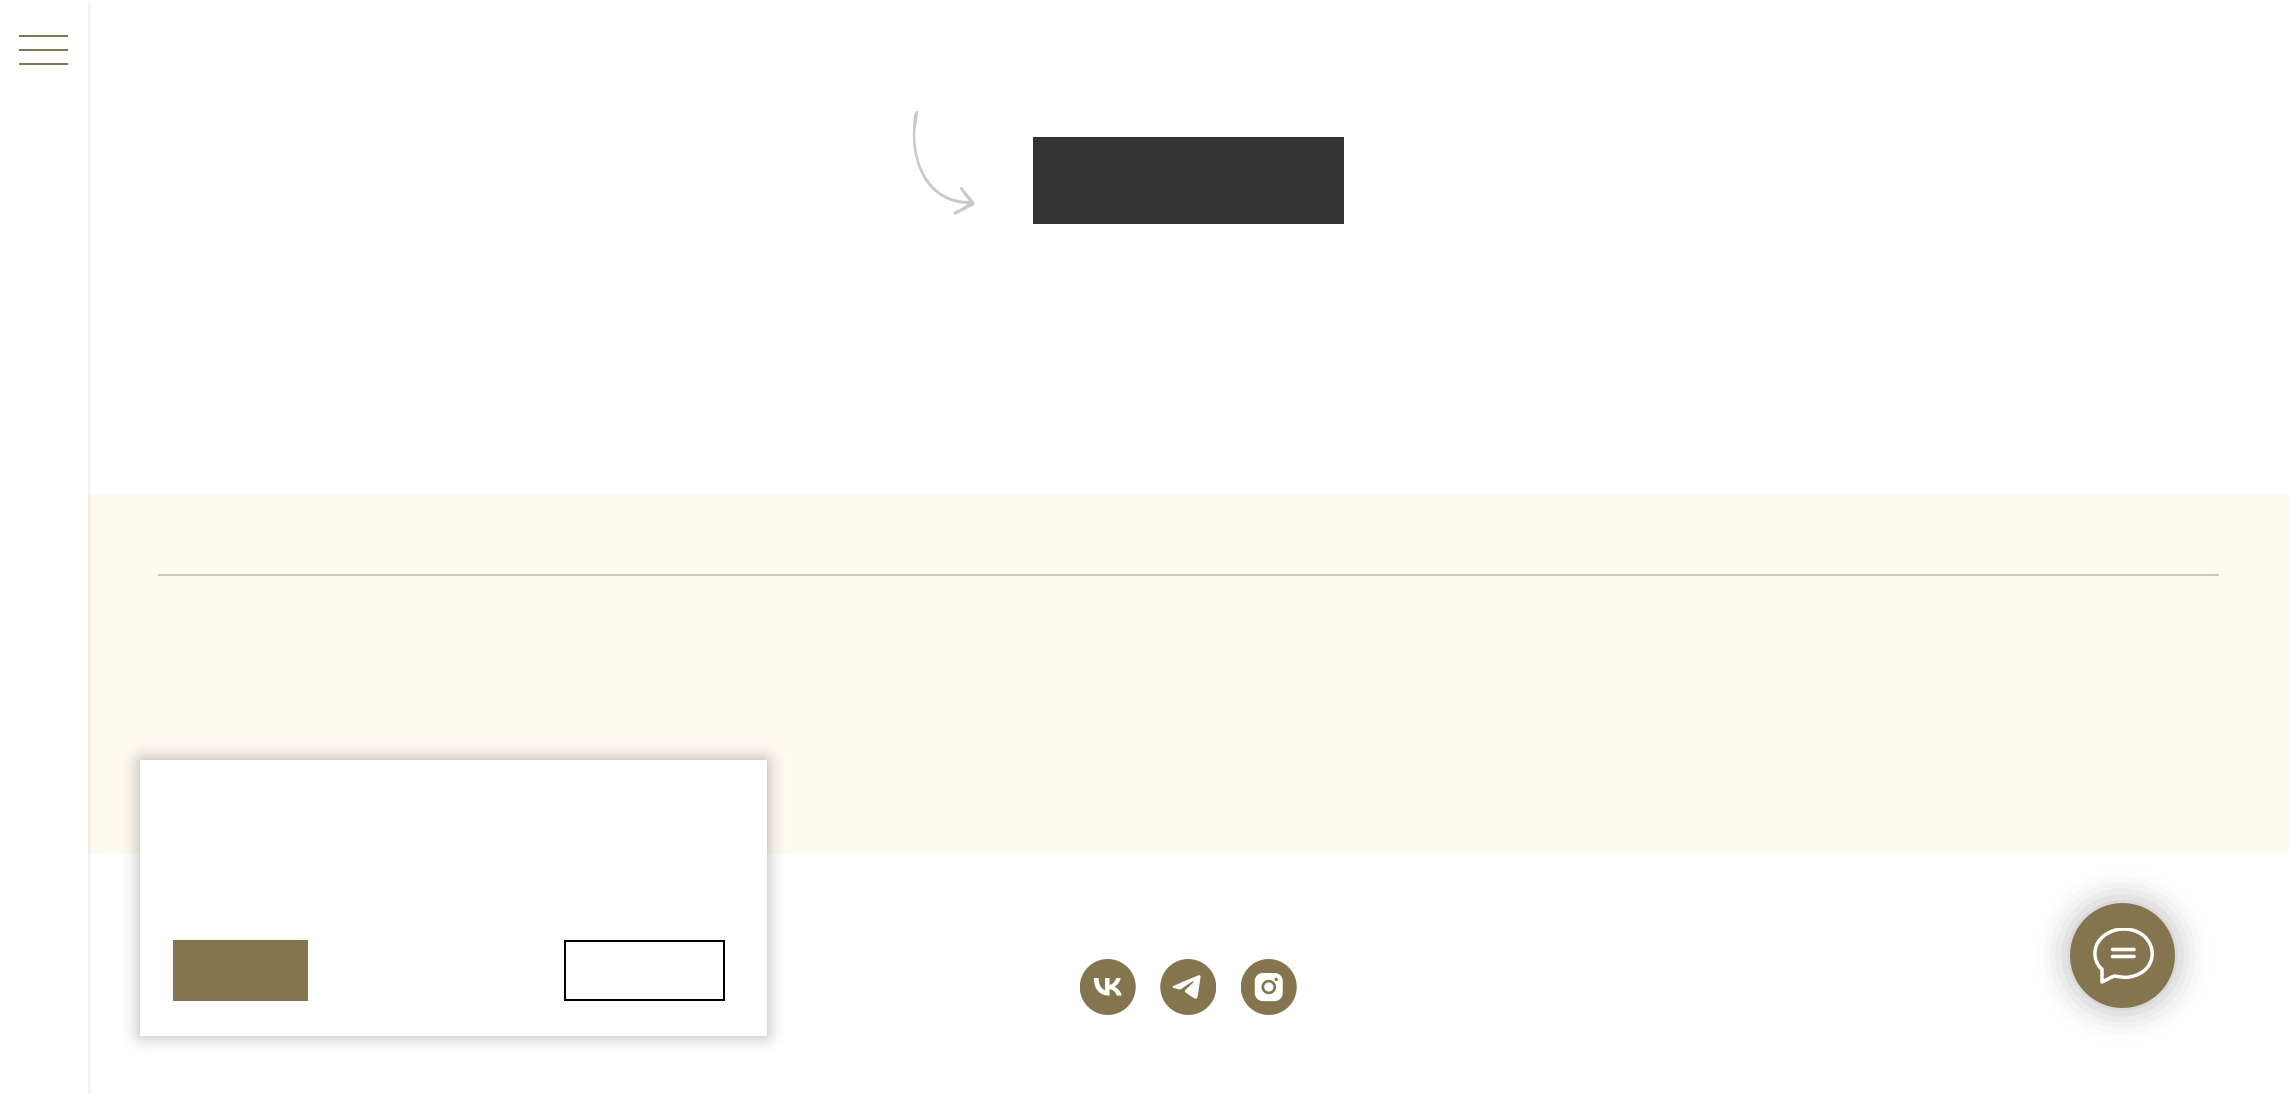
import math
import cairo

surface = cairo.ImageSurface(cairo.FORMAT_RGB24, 2289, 1094)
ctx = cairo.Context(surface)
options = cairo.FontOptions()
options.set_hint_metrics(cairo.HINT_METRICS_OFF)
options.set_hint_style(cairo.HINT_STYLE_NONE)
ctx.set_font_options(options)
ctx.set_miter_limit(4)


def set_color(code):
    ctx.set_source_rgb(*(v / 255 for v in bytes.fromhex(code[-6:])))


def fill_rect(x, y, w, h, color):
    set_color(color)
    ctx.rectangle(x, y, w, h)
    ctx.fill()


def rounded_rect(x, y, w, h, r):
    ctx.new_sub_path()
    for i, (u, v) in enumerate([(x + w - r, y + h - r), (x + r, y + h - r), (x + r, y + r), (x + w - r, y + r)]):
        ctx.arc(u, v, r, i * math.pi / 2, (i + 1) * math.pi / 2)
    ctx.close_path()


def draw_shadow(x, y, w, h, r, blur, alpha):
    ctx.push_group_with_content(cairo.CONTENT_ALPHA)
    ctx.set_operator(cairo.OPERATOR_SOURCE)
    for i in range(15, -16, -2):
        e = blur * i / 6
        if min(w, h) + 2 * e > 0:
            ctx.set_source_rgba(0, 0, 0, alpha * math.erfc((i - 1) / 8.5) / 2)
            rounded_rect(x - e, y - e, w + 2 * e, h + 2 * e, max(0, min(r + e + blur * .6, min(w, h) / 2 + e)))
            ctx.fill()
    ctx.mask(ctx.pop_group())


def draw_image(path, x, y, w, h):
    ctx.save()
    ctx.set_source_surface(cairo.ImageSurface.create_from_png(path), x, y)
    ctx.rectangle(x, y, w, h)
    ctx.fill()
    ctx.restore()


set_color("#ffffff")
ctx.paint()
fill_rect(88, 495, 2201, 359, "#fef9f1")
set_color("#84754e")
draw_shadow(-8, 4, 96, 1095, 0, 2.5, 0.25)
fill_rect(0, 0, 88, 1094, "#ffffff")
fill_rect(19, 35, 49, 2, "#84754e")
fill_rect(19, 49, 49, 2, "#84754e")
fill_rect(19, 63, 49, 2, "#84754e")
set_color("#000000")
draw_shadow(140, 760, 627, 276, 0, 9, 0.3)
fill_rect(140, 760, 627, 276, "#ffffff")
fill_rect(173, 940, 135, 61, "#84754e")
ctx.rectangle(565, 941, 159, 59)
set_color("#000000")
ctx.stroke()
set_color("#c9c9c9")
ctx.new_path()
ctx.move_to(955, 215)
ctx.line_to(954, 214)
ctx.curve_to(951, 212, 959, 209, 960, 209)
ctx.line_to(968, 204)
ctx.curve_to(928, 203, 911, 166, 913, 129)
ctx.curve_to(913, 127, 913, 111, 917, 111)
ctx.line_to(918, 111)
ctx.line_to(918, 113)
ctx.line_to(917, 121)
ctx.curve_to(915, 129, 915, 139, 916, 147)
ctx.curve_to(920, 177, 938, 201, 969, 201)
ctx.curve_to(968, 200, 959, 189, 960, 188)
ctx.curve_to(960, 187, 961, 187, 962, 187)
ctx.line_to(974, 202)
ctx.curve_to(974, 204, 975, 204, 974, 205)
ctx.close_path()
ctx.fill()
fill_rect(1033, 137, 311, 87, "#333333")
fill_rect(158, 574, 2061, 2, "#cbc7c1")
draw_image("assets/img1.png", 1080, 959, 56, 56)
draw_image("assets/img2.png", 1160, 959, 56, 56)
draw_image("assets/img3.png", 1241, 959, 56, 56)
set_color("#000000")
draw_shadow(2070, 903, 105, 105, 52.5, 17.5, 0.3)
set_color("#84754e")
ctx.arc(2122.5, 955.5, 52.5, 0, 2 * math.pi)
ctx.fill()
ctx.save()
ctx.rectangle(2093, 928, 61, 56)
ctx.clip()
ctx.new_path()
ctx.move_to(2112.5, 949.5)
ctx.line_to(2134, 949.5)
ctx.move_to(2112.5, 956.5)
ctx.line_to(2134, 956.5)
ctx.move_to(2101.5, 969)
ctx.curve_to(2092, 959.5, 2093, 945, 2103, 936.5)
ctx.curve_to(2109, 931.5, 2116.5, 929, 2123.5, 929)
ctx.curve_to(2157.5, 929, 2163.5, 971, 2129.5, 977)
ctx.curve_to(2123, 978, 2120, 976.5, 2114, 976)
ctx.line_to(2102, 982)
ctx.line_to(2102, 969)
ctx.close_path()
set_color("#ffffff")
ctx.set_line_width(3.5)
ctx.set_line_cap(cairo.LINE_CAP_ROUND)
ctx.set_line_join(cairo.LINE_JOIN_ROUND)
ctx.stroke()
ctx.restore()
surface.write_to_png("output.png")
